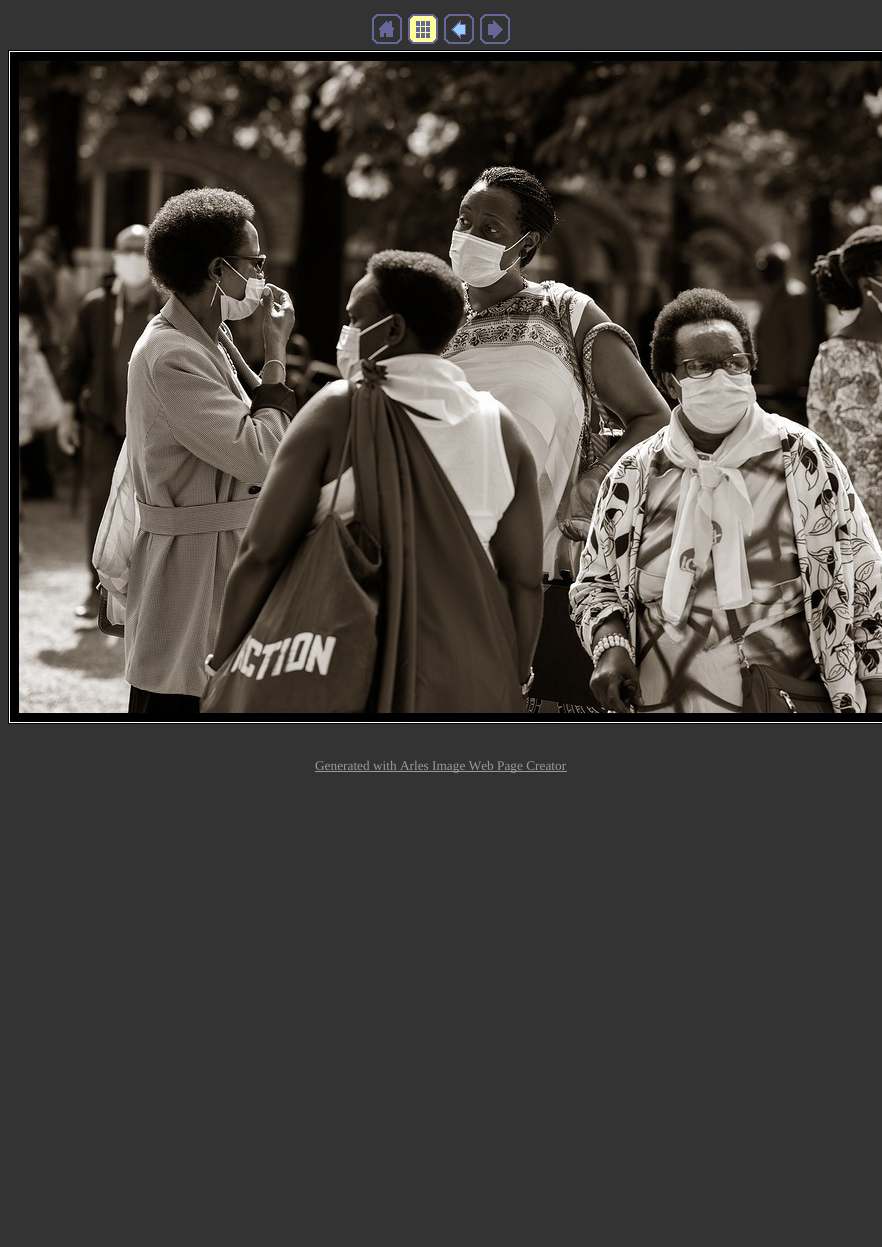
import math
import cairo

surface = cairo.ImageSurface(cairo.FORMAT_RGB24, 882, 1247)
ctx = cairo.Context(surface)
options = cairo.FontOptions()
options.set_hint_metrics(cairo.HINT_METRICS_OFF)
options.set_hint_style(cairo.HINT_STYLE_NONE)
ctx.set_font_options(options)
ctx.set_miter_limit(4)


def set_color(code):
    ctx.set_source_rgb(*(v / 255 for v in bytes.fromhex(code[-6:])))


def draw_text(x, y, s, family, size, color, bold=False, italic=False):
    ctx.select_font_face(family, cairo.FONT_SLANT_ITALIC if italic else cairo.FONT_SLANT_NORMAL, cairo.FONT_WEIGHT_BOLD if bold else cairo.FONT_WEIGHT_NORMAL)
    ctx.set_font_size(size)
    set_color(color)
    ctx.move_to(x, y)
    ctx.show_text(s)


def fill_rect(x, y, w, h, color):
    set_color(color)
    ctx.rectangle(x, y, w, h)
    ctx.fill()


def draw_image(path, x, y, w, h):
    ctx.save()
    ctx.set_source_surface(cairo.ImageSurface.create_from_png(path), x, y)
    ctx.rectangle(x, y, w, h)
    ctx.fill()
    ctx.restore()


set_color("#333333")
ctx.paint()
draw_image("assets/img1.png", 372, 14, 30, 30)
draw_image("assets/img2.png", 408, 14, 30, 30)
draw_image("assets/img3.png", 444, 14, 30, 30)
draw_image("assets/img4.png", 480, 14, 30, 30)
draw_image("assets/img5.png", 8, 50, 874, 674)
fill_rect(315, 771, 252, 1, "#999999")
draw_text(315, 770, "Generated with Arles Image Web Page Creator", "Liberation Serif", 13.3, "#999999")
surface.write_to_png("output.png")
